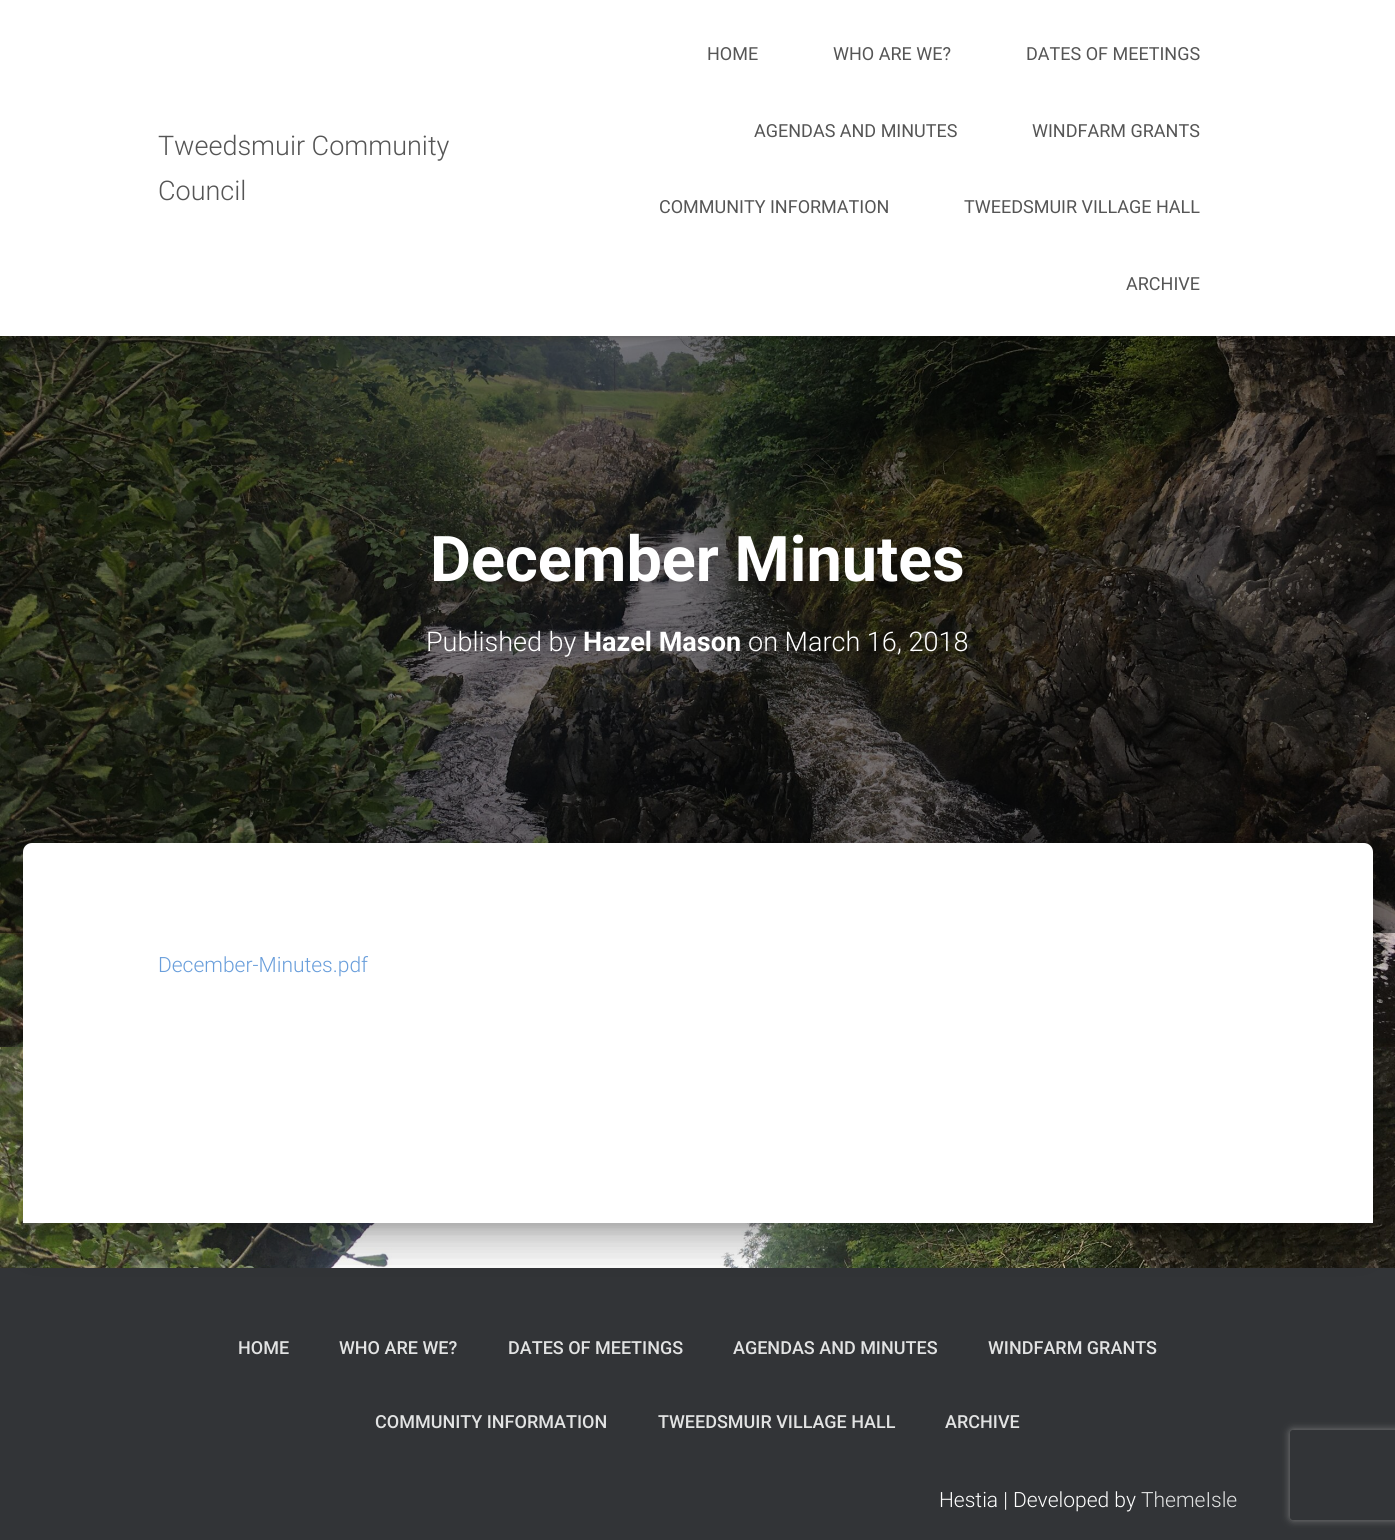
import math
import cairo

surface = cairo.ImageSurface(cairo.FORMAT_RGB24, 1395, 1540)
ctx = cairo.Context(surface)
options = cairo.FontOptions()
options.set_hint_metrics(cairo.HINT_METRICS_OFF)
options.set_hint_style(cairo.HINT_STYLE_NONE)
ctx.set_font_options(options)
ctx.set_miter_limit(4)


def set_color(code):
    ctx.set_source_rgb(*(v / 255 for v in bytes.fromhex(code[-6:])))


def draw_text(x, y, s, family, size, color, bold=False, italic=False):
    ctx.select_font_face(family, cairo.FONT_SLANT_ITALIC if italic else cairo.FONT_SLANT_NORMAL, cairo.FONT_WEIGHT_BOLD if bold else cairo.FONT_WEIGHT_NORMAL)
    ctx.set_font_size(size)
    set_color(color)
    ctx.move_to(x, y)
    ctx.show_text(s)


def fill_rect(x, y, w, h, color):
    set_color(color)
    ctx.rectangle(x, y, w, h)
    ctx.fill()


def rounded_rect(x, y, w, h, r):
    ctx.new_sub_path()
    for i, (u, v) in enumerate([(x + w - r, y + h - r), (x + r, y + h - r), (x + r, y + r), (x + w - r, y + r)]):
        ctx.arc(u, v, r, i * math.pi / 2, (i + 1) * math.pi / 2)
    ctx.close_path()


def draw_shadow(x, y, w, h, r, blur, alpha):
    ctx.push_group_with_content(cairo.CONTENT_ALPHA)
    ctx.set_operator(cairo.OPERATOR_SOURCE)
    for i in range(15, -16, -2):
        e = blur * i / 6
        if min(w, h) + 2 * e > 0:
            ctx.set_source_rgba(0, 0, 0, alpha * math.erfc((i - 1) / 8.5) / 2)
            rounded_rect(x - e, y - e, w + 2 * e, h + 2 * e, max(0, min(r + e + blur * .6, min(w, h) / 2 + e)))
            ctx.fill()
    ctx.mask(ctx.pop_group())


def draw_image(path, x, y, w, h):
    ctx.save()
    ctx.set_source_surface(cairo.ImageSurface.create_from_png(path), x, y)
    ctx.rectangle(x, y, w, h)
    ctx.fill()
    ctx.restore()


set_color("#ffffff")
ctx.paint()
draw_image("assets/img1.png", 0, 336, 1395, 932)
ctx.set_source_rgba(0, 0, 0, 0.5)
ctx.rectangle(0, 336, 1395, 597)
ctx.fill()
set_color("#000000")
draw_shadow(3, 9, 1389, 330, 0, 4, 0.1)
draw_shadow(0, 2, 1395, 336, 0, 7.5, 0.12)
draw_shadow(9, 11, 1377, 318, 0, 7.5, 0.42)
fill_rect(0, 0, 1395, 336, "#ffffff")
draw_text(158, 155, "Tweedsmuir Community", "Roboto Light", 27, "#555555")
draw_text(158, 200, "Council", "Roboto Light", 27, "#555555")
draw_text(707, 60, "HOME", "Roboto", 18, "#555555")
draw_text(833, 60, "WHO ARE WE?", "Roboto", 18, "#555555")
draw_text(1026, 60, "DATES OF MEETINGS", "Roboto", 18, "#555555")
draw_text(754, 137, "AGENDAS AND MINUTES", "Roboto", 18, "#555555")
draw_text(1032, 137, "WINDFARM GRANTS", "Roboto", 18, "#555555")
draw_text(659, 213, "COMMUNITY INFORMATION", "Roboto", 18, "#555555")
draw_text(964, 213, "TWEEDSMUIR VILLAGE HALL", "Roboto", 18, "#555555")
draw_text(1126, 290, "ARCHIVE", "Roboto", 18, "#555555")
draw_text(430, 581, "December Minutes", "Roboto", 63, "#ffffff", bold=True)
draw_text(426, 651, "Published by", "Roboto Light", 27, "#ffffff")
draw_text(583, 651, "Hazel Mason", "Roboto", 27, "#ffffff", bold=True)
draw_text(748, 651, "on March 16, 2018", "Roboto Light", 27, "#ffffff")
set_color("#000000")
draw_shadow(30, 863, 1335, 364, 1.5, 7.5, 0.2)
fill_rect(0, 1268, 1395, 272, "#323437")
set_color("#000000")
draw_shadow(15, 845, 1365, 394, 17, 22.5, 0.12)
draw_shadow(20, 864, 1356, 386, 12, 18, 0.14)
set_color("#ffffff")
ctx.new_path()
ctx.move_to(32, 843)
ctx.line_to(1364, 843)
ctx.curve_to(1369, 843, 1373, 847, 1373, 852)
ctx.line_to(1373, 1223)
ctx.line_to(23, 1223)
ctx.line_to(23, 852)
ctx.curve_to(23, 847, 27, 843, 32, 843)
ctx.close_path()
ctx.fill()
draw_text(158, 972, "December-Minutes.pdf", "Roboto Light", 21, "#699edb")
draw_text(238, 1354, "HOME", "Roboto Medium", 18, "#e2e3e3")
draw_text(339, 1354, "WHO ARE WE?", "Roboto Medium", 18, "#e2e3e3")
draw_text(508, 1354, "DATES OF MEETINGS", "Roboto Medium", 18, "#e2e3e3")
draw_text(733, 1354, "AGENDAS AND MINUTES", "Roboto Medium", 18, "#e2e3e3")
draw_text(988, 1354, "WINDFARM GRANTS", "Roboto Medium", 18, "#e2e3e3")
draw_text(375, 1428, "COMMUNITY INFORMATION", "Roboto Medium", 18, "#e2e3e3")
draw_text(658, 1428, "TWEEDSMUIR VILLAGE HALL", "Roboto Medium", 18, "#e2e3e3")
draw_text(945, 1428, "ARCHIVE", "Roboto Medium", 18, "#e2e3e3")
draw_text(939, 1507, "Hestia | Developed by", "Roboto Light", 21, "#ffffff")
draw_text(1141, 1507, "ThemeIsle", "Roboto Light", 21, "#e2e3e3")
ctx.save()
ctx.set_fill_rule(cairo.FILL_RULE_EVEN_ODD)
ctx.new_path()
ctx.move_to(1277, 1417)
ctx.line_to(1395, 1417)
ctx.line_to(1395, 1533)
ctx.line_to(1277, 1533)
ctx.close_path()
ctx.move_to(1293, 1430)
ctx.line_to(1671, 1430)
ctx.curve_to(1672.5, 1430, 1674, 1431.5, 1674, 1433)
ctx.line_to(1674, 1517)
ctx.curve_to(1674, 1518.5, 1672.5, 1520, 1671, 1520)
ctx.line_to(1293, 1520)
ctx.curve_to(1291.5, 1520, 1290, 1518.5, 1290, 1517)
ctx.line_to(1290, 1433)
ctx.curve_to(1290, 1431.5, 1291.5, 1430, 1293, 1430)
ctx.close_path()
ctx.clip()
set_color("#808080")
draw_shadow(1290, 1430, 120, 90, 3, 4, 1)
ctx.restore()
surface.write_to_png("output.png")
